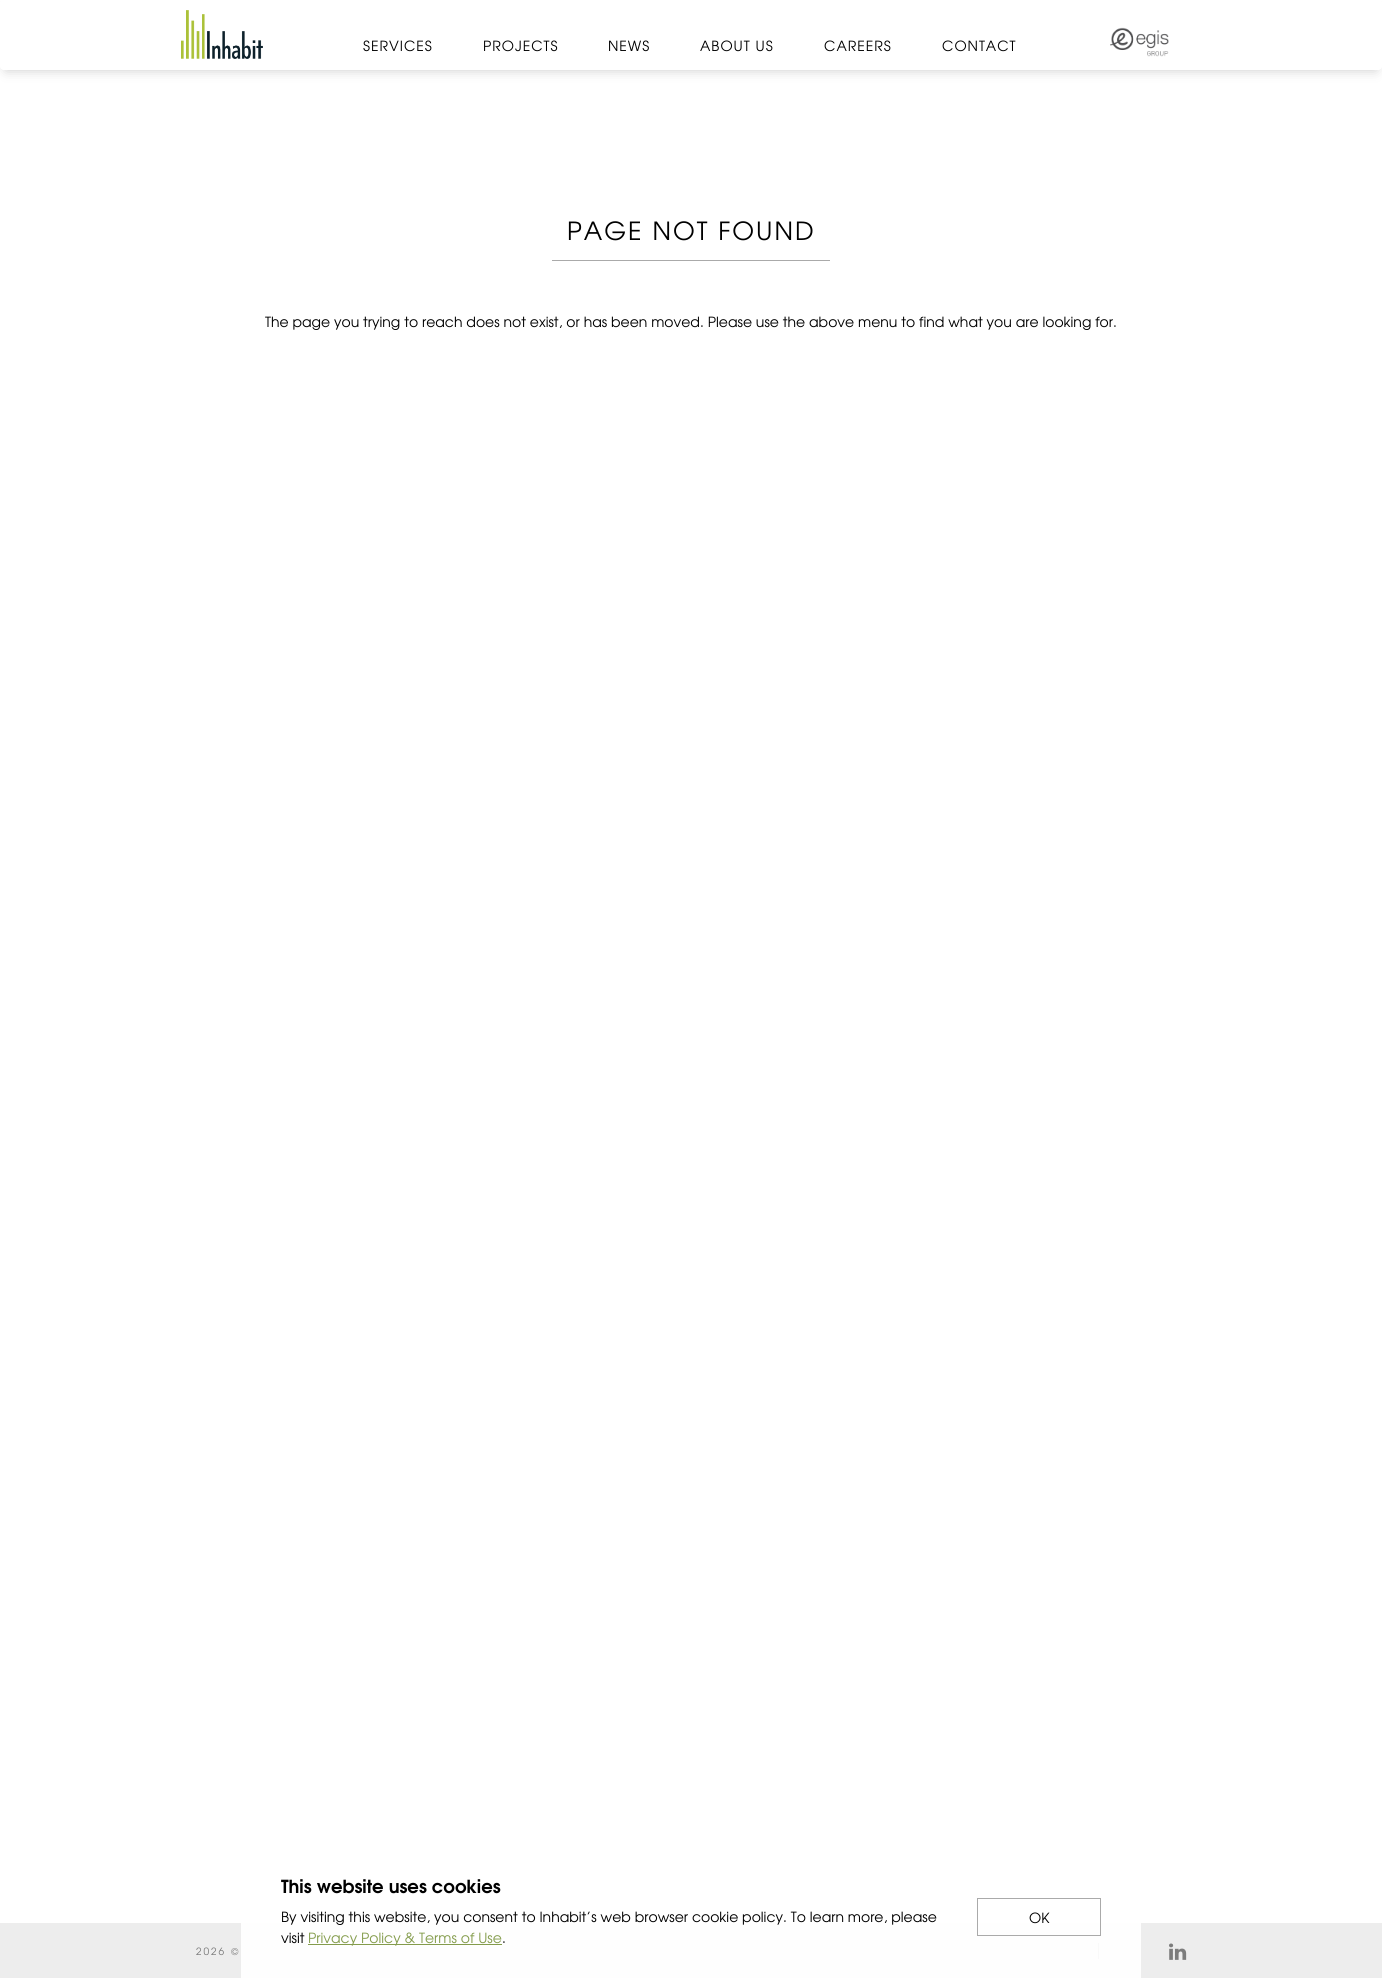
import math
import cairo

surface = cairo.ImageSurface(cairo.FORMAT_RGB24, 1382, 1978)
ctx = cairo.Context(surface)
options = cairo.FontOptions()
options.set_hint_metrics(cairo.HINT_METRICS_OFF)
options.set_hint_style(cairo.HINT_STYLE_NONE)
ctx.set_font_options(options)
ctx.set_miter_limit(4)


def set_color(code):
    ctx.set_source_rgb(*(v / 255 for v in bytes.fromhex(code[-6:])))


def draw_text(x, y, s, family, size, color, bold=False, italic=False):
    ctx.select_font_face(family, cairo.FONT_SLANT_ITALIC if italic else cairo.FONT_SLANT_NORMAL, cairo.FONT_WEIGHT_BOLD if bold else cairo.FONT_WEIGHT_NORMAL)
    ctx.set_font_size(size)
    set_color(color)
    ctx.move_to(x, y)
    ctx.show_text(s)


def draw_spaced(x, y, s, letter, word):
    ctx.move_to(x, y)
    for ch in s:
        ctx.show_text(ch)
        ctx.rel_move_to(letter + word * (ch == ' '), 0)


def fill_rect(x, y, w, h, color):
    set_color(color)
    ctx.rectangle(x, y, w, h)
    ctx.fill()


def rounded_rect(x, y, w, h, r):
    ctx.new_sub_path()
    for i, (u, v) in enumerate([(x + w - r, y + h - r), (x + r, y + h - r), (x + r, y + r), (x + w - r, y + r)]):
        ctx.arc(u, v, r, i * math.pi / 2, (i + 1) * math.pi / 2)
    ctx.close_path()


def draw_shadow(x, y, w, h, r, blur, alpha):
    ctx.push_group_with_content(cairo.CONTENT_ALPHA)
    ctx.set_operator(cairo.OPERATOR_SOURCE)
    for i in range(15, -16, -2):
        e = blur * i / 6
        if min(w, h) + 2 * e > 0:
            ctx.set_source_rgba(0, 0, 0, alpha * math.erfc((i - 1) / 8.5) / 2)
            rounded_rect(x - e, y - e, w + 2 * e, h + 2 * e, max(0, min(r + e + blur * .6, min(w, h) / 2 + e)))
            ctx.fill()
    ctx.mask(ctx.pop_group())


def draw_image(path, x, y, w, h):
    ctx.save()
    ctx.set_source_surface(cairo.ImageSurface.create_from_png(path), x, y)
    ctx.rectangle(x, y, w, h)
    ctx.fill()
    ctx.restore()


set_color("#ffffff")
ctx.paint()
ctx.save()
ctx.set_fill_rule(cairo.FILL_RULE_EVEN_ODD)
ctx.new_path()
ctx.move_to(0, 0)
ctx.line_to(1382, 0)
ctx.line_to(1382, 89)
ctx.line_to(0, 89)
ctx.close_path()
ctx.move_to(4, 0)
ctx.line_to(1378, 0)
ctx.curve_to(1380, 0, 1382, 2, 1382, 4)
ctx.line_to(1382, 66)
ctx.curve_to(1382, 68, 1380, 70, 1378, 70)
ctx.line_to(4, 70)
ctx.curve_to(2, 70, 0, 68, 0, 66)
ctx.line_to(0, 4)
ctx.curve_to(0, 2, 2, 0, 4, 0)
ctx.close_path()
ctx.clip()
set_color("#cccccc")
draw_shadow(6, 12, 1370, 58, 0, 6, 1)
ctx.restore()
draw_image("assets/img1.png", 181, 10, 82, 49)
ctx.select_font_face("TeX Gyre Adventor")
ctx.set_font_size(14)
set_color("#000000")
draw_spaced(363, 51, "SERVICES", 1, 0)
draw_spaced(483, 51, "PROJECTS", 1, 0)
draw_spaced(608, 51, "NEWS", 1, 0)
draw_spaced(700, 51, "ABOUT US", 1, 0)
draw_spaced(824, 51, "CAREERS", 1, 0)
draw_spaced(942, 51, "CONTACT", 1, 0)
draw_image("assets/img2.png", 1110, 27, 59, 30)
fill_rect(552, 260, 278, 1, "#aaaaaa")
ctx.set_font_size(25)
set_color("#000000")
draw_spaced(567, 240, "PAGE NOT FOUND", 2, 0)
draw_text(265, 327, "The page you trying to reach does not exist, or has been moved. Please use the above menu to find what you are looking for.", "TeX Gyre Adventor", 14, "#000000")
fill_rect(0, 1923, 1382, 55, "#ededed")
ctx.set_font_size(10)
set_color("#757575")
draw_spaced(196, 1955, "2026 ©", 2, 0)
fill_rect(1098, 1943, 1, 16, "#757575")
draw_image("assets/img3.png", 1169, 1943, 18, 17)
ctx.set_source_rgba(1, 1, 1, 0.95)
ctx.rectangle(241, 1923, 900, 55)
ctx.fill()
draw_text(281, 1893, "This website uses cookies", "TeX Gyre Adventor", 18, "#000000", bold=True)
draw_text(281, 1922, "By visiting this website, you consent to Inhabit’s web browser cookie policy. To learn more, please", "TeX Gyre Adventor", 14, "#000000")
draw_text(281, 1943, "visit", "TeX Gyre Adventor", 14, "#000000")
fill_rect(308, 1944, 194, 1, "#849c4c")
draw_text(308, 1943, "Privacy Policy & Terms of Use", "TeX Gyre Adventor", 14, "#849c4c")
draw_text(502, 1943, ".", "TeX Gyre Adventor", 14, "#000000")
ctx.rectangle(977.5, 1898.5, 123, 37)
set_color("#aaaaaa")
ctx.set_line_width(1)
ctx.stroke()
draw_text(1029, 1923, "OK", "TeX Gyre Adventor", 14, "#000000")
surface.write_to_png("output.png")
